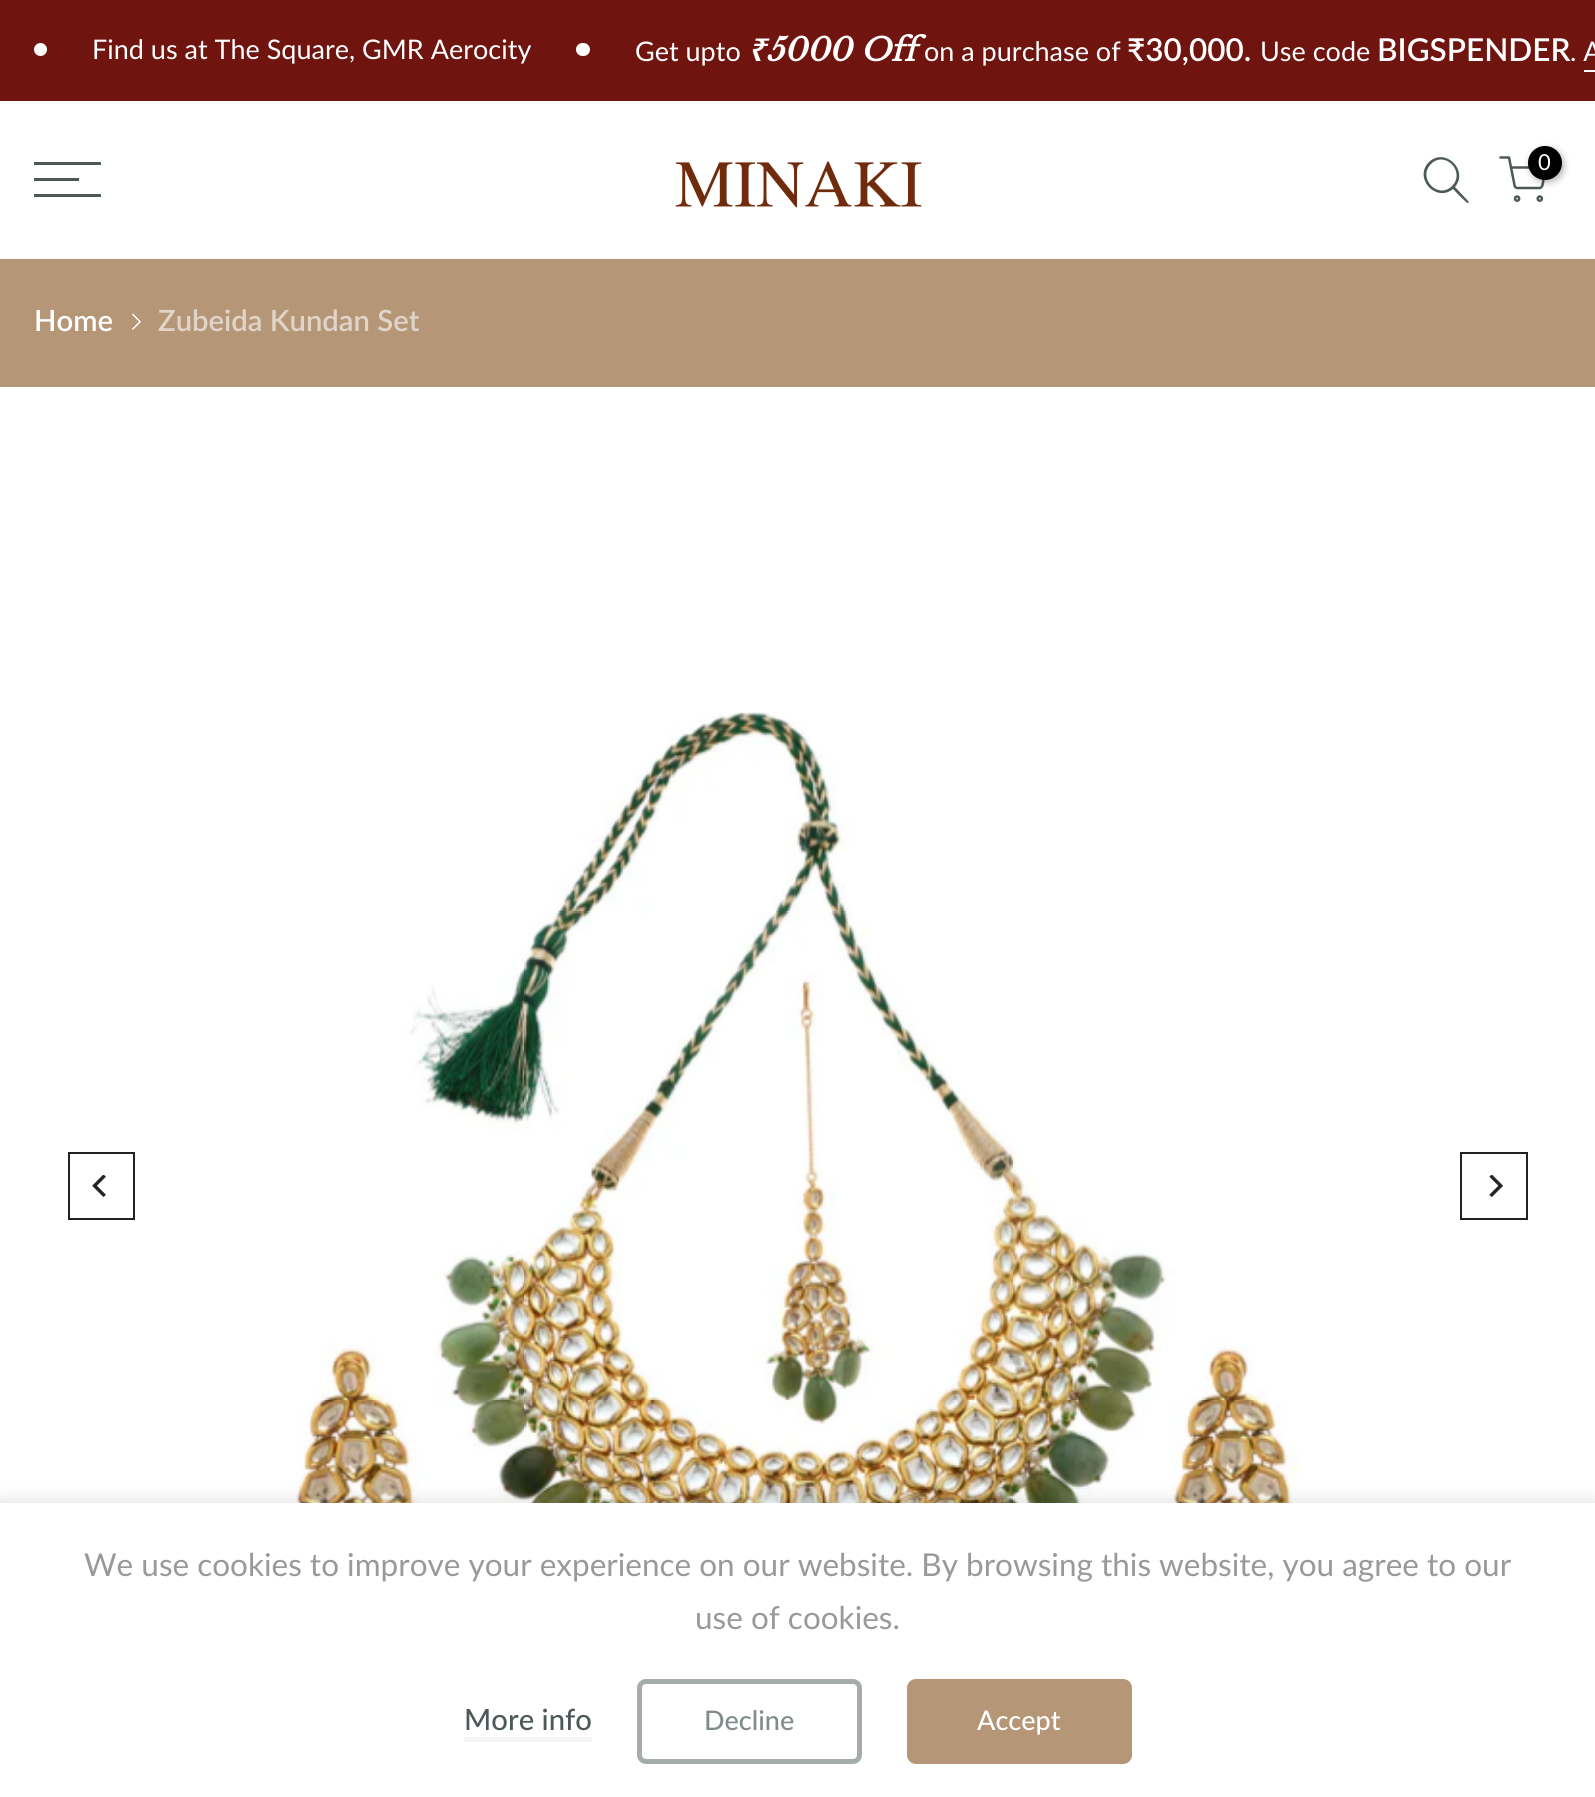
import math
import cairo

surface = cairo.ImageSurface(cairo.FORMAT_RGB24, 1595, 1797)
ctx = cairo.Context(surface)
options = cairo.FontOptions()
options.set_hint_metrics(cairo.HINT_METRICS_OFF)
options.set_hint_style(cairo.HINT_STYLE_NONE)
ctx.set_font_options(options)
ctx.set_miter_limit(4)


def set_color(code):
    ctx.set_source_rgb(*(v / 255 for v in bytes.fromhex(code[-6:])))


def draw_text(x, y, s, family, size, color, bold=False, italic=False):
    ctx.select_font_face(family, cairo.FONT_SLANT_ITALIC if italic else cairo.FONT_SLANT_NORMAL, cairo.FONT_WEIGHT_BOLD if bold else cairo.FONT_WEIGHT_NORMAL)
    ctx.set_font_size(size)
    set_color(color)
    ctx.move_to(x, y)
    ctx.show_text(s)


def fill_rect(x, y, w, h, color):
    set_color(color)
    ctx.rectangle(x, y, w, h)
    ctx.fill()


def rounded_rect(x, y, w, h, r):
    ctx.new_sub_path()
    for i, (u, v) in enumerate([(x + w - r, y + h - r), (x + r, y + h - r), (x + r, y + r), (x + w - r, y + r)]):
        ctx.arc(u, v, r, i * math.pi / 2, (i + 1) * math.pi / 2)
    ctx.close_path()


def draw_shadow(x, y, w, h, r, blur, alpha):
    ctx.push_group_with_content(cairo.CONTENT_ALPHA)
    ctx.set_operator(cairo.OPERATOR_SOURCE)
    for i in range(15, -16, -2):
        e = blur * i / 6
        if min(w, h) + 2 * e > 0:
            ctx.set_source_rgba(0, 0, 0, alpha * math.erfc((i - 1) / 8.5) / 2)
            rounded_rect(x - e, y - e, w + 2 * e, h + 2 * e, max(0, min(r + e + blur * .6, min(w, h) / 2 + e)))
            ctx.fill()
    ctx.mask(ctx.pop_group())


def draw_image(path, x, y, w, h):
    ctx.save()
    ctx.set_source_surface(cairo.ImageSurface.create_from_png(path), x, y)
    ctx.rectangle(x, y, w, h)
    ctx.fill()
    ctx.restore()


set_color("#ffffff")
ctx.paint()
fill_rect(0, 0, 1595, 101, "#6f140e")
set_color("#ffffff")
ctx.arc(40.5, 49.5, 6.5, 0, 2 * math.pi)
ctx.fill()
draw_text(92, 59, "Find us at The Square, GMR Aerocity", "Lato", 27, "#ffffff")
rounded_rect(576, 43, 14, 13, 6.5)
ctx.fill()
draw_text(635, 61, "Get upto", "Lato", 27, "#ffffff")
draw_text(748, 61, "₹", "Noto Sans SemiBold", 31.5, "#ffffff", italic=True)
draw_text(766, 61, "5000 Off", "Libre Baskerville", 31.5, "#ffffff", bold=True, italic=True)
draw_text(924, 61, "on a purchase of", "Lato", 27, "#ffffff")
draw_text(1127, 61, "₹30,000.", "Lato SemiBold", 31.5, "#ffffff")
draw_text(1260, 61, "Use code", "Lato", 27, "#ffffff")
draw_text(1377, 61, "BIGSPENDER", "Lato SemiBold", 31.5, "#ffffff")
draw_text(1570, 61, ". A", "Lato", 27, "#ffffff")
fill_rect(1584, 70, 11, 2, "#ffffff")
fill_rect(34, 162, 67, 3, "#4d5959")
fill_rect(34, 178, 45, 3, "#4d5959")
fill_rect(34, 194, 67, 3, "#4d5959")
draw_image("assets/img1.png", 675, 161, 247, 47)
ctx.set_fill_rule(cairo.FILL_RULE_EVEN_ODD)
ctx.new_path()
ctx.move_to(1452, 186)
ctx.curve_to(1438, 200, 1417, 178, 1431, 164)
ctx.curve_to(1445, 150, 1466, 172, 1452, 186)
ctx.close_path()
ctx.move_to(1453, 189)
ctx.curve_to(1436, 203, 1413, 178, 1429, 162)
ctx.curve_to(1445, 147, 1469, 170, 1455, 187)
ctx.line_to(1469, 202)
ctx.line_to(1468, 203)
ctx.curve_to(1467, 204, 1455, 191, 1453, 189)
ctx.close_path()
ctx.fill()
ctx.new_path()
ctx.move_to(1500.5, 157.5)
ctx.line_to(1509, 157.5)
ctx.line_to(1514.5, 185)
ctx.curve_to(1514.5, 187, 1516.5, 188.5, 1518.5, 188)
ctx.line_to(1538.5, 188)
ctx.curve_to(1540.5, 188.5, 1542, 187, 1542.5, 185)
ctx.line_to(1546, 167.5)
ctx.line_to(1511, 167.5)
ctx.set_line_width(2.5)
ctx.set_line_cap(cairo.LINE_CAP_ROUND)
ctx.set_line_join(cairo.LINE_JOIN_ROUND)
ctx.stroke()
set_color("#000000")
draw_shadow(1530, 149, 34, 33, 16.5, 3.5, 0.3)
set_color("#000000")
ctx.arc(1545, 163, 17, 0, 2 * math.pi)
ctx.fill()
draw_text(1538, 170, "0", "Lato", 22, "#ffffff")
ctx.new_path()
ctx.arc(1517.1, 198.6, 2.1, 0, 2 * math.pi)
set_color("#4d5959")
ctx.set_line_cap(cairo.LINE_CAP_BUTT)
ctx.set_line_join(cairo.LINE_JOIN_MITER)
ctx.stroke()
ctx.arc(1539.8, 198.6, 2.1, 0, 2 * math.pi)
ctx.stroke()
fill_rect(0, 259, 1595, 128, "#b59677")
draw_text(34, 331, "Home", "Lato SemiBold", 29.25, "#ffffff")
draw_image("assets/img2.png", 132, 313, 9, 17)
draw_text(158, 331, "Zubeida Kundan Set", "Lato SemiBold", 29.25, "#e1d5c9")
ctx.rectangle(69, 1153, 65, 66)
set_color("#222222")
ctx.set_line_width(2)
ctx.stroke()
draw_image("assets/img3.png", 92, 1175, 14, 22)
draw_image("assets/img4.png", 268, 712, 1042, 791)
ctx.rectangle(1461, 1153, 66, 66)
ctx.stroke()
draw_image("assets/img5.png", 1489, 1175, 14, 22)
set_color("#000000")
draw_shadow(0, 1503, 1595, 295, 0, 10, 0.14)
fill_rect(0, 1503, 1595, 294, "#ffffff")
draw_text(84, 1576, "We use cookies to improve your experience on our website. By browsing this website, you agree to our", "Lato", 31.5, "#999999")
draw_text(695, 1629, "use of cookies.", "Lato", 31.5, "#999999")
draw_text(464, 1730, "More info", "Lato Medium", 29.25, "#4d5959")
fill_rect(464, 1737, 128, 5, "#f6f6f8")
rounded_rect(639.5, 1681.5, 220, 80, 6.5)
set_color("#a6acac")
ctx.set_line_width(5)
ctx.stroke()
draw_text(704, 1730, "Decline", "Lato Medium", 27, "#828b8b")
set_color("#b59677")
rounded_rect(907, 1679, 225, 85, 9)
ctx.fill()
draw_text(977, 1730, "Accept", "Lato Medium", 27, "#ffffff")
surface.write_to_png("output.png")
